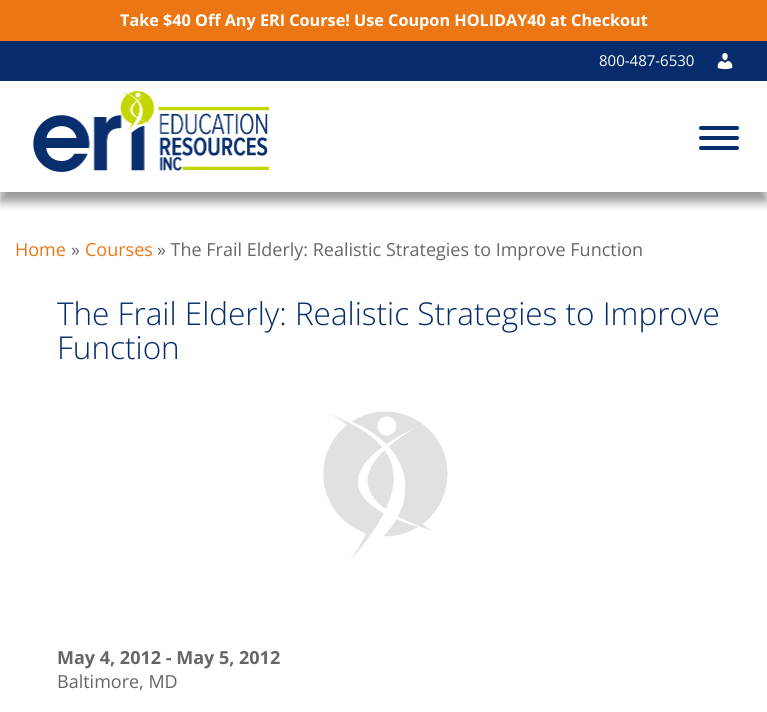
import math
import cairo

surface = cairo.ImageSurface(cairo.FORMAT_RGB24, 767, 712)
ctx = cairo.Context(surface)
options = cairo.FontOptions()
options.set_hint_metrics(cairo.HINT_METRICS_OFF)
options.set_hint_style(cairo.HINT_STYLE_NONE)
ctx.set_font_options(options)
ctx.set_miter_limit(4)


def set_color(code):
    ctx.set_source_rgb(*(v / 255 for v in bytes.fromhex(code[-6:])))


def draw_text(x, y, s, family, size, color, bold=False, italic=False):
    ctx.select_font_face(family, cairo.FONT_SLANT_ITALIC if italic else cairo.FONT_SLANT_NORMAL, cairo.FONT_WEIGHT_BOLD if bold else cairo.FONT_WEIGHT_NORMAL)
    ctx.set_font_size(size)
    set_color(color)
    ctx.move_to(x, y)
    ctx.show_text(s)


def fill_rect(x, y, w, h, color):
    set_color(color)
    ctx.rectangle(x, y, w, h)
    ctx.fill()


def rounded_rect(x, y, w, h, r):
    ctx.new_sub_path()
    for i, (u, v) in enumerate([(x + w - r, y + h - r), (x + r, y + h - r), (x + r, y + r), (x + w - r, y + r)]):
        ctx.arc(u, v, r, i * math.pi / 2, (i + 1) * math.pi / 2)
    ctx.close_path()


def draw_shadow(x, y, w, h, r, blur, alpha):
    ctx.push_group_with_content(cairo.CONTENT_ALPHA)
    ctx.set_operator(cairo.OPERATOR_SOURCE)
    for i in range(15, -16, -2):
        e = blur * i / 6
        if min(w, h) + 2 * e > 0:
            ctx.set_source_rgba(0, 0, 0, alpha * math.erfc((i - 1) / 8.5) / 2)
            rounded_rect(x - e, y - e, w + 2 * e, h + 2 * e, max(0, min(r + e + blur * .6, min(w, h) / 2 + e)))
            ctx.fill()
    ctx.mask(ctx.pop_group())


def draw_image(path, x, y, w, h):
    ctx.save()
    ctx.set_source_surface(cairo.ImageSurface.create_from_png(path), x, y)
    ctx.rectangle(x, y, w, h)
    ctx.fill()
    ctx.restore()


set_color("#ffffff")
ctx.paint()
fill_rect(0, 0, 767, 41, "#eb7613")
draw_text(120, 26, "Take $40 Off Any ERI Course! Use Coupon HOLIDAY40 at Checkout", "Open Sans", 16.2, "#ffffff", bold=True)
fill_rect(0, 41, 767, 40, "#062c6b")
draw_text(599, 66, "800-487-6530", "Open Sans", 15, "#ffffff")
draw_image("assets/img1.png", 717, 53, 16, 17)
ctx.save()
ctx.rectangle(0, 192, 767, 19)
ctx.clip()
set_color("#323232")
draw_shadow(0, 91, 767, 111, 0, 5, 0.5)
ctx.restore()
draw_image("assets/img2.png", 33, 91, 236, 81)
set_color("#062c6b")
rounded_rect(699, 126, 40, 4, 2)
ctx.fill()
rounded_rect(699, 136, 40, 4, 2)
ctx.fill()
rounded_rect(699, 146, 40, 4, 2)
ctx.fill()
draw_text(15, 256, "Home", "Open Sans", 18, "#eb7613")
draw_text(71, 256, "»", "Open Sans", 18, "#666666")
draw_text(85, 256, "Courses", "Open Sans", 18, "#eb7613")
draw_text(157, 256, "» The Frail Elderly: Realistic Strategies to Improve Function", "Open Sans", 18, "#666666")
draw_text(57, 325, "The Frail Elderly: Realistic Strategies to Improve", "Open Sans Light", 31.5, "#062c6b")
draw_text(57, 359, "Function", "Open Sans Light", 31.5, "#062c6b")
draw_image("assets/img3.png", 323, 411, 125, 149)
draw_text(57, 664, "May 4, 2012 - May 5, 2012", "Open Sans", 18, "#666666", bold=True)
draw_text(57, 688, "Baltimore, MD", "Open Sans", 18, "#666666")
surface.write_to_png("output.png")
